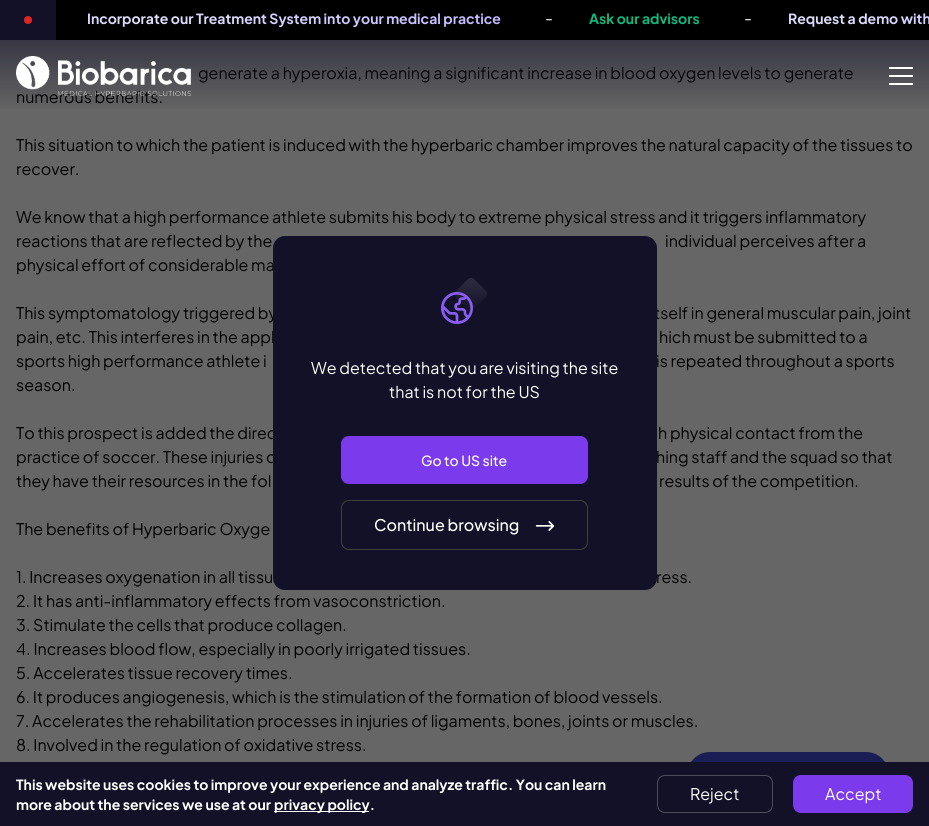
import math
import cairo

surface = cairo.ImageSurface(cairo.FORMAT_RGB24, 929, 826)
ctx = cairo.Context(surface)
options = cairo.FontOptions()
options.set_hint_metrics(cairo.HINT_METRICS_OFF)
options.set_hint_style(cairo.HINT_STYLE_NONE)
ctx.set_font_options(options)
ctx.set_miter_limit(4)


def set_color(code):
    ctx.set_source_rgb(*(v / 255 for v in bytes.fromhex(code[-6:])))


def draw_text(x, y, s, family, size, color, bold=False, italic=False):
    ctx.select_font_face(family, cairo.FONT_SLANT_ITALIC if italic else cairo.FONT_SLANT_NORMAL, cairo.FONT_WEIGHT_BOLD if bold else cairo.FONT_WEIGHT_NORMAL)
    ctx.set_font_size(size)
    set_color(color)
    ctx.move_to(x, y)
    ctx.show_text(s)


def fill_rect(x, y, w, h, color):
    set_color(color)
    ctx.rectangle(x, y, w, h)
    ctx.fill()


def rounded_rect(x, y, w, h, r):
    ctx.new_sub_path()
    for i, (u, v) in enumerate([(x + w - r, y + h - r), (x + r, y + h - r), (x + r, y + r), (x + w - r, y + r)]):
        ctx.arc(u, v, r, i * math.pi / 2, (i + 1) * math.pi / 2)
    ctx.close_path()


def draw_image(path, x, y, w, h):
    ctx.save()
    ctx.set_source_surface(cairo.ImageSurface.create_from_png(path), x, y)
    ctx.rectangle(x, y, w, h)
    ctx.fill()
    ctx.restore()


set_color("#666666")
ctx.paint()
fill_rect(56, 0, 873, 40, "#000000")
fill_rect(0, 0, 56, 40, "#121127")
set_color("#dc2626")
ctx.arc(28, 20, 4, 0, 2 * math.pi)
ctx.fill()
ctx.select_font_face("Plus Jakarta Sans", cairo.FONT_SLANT_NORMAL, cairo.FONT_WEIGHT_BOLD)
ctx.set_font_size(14)
gradient = cairo.RadialGradient(155, 18, 0, 155, 18, 370)
gradient.add_color_stop_rgba(0, 0.871, 0.878, 0.98, 1)
gradient.add_color_stop_rgba(1, 0.749, 0.71, 1, 1)
ctx.set_source(gradient)
ctx.move_to(87, 24)
ctx.show_text("Incorporate our Treatment System into your medical practice")
draw_text(545, 24, "-", "Plus Jakarta Sans", 16, "#ffffff")
draw_text(589, 24, "Ask our advisors", "Plus Jakarta Sans", 14, "#10b981", bold=True)
draw_text(744, 24, "-", "Plus Jakarta Sans", 16, "#ffffff")
ctx.select_font_face("Plus Jakarta Sans", cairo.FONT_SLANT_NORMAL, cairo.FONT_WEIGHT_BOLD)
ctx.set_font_size(14)
gradient = cairo.RadialGradient(829, 18, 0, 829, 18, 262)
gradient.add_color_stop_rgba(0, 0.871, 0.878, 0.98, 1)
gradient.add_color_stop_rgba(1, 0.749, 0.71, 1, 1)
ctx.set_source(gradient)
ctx.move_to(788, 24)
ctx.show_text("Request a demo with")
draw_text(198, 79, "generate a hyperoxia, meaning a significant increase in blood oxygen levels to generate", "Plus Jakarta Sans", 16, "#000000")
draw_text(16, 103, "numerous benefits.", "Plus Jakarta Sans", 16, "#000000")
gradient = cairo.LinearGradient(465, 40, 465, 112)
gradient.add_color_stop_rgba(0, 0.071, 0.067, 0.153, 0.56)
gradient.add_color_stop_rgba(1, 0.071, 0.067, 0.153, 0)
ctx.set_source(gradient)
ctx.rectangle(0, 40, 929, 69)
ctx.fill()
draw_image("assets/img1.png", 16, 56, 175, 40)
fill_rect(889, 67, 24, 2, "#ffffff")
fill_rect(889, 75, 24, 2, "#ffffff")
fill_rect(889, 83, 24, 2, "#ffffff")
draw_text(16, 151, "This situation to which the patient is induced with the hyperbaric chamber improves the natural capacity of the tissues to", "Plus Jakarta Sans", 16, "#000000")
draw_text(16, 175, "recover.", "Plus Jakarta Sans", 16, "#000000")
draw_text(16, 223, "We know that a high performance athlete submits his body to extreme physical stress and it triggers inflammatory", "Plus Jakarta Sans", 16, "#000000")
draw_text(16, 247, "reactions that are reflected by the", "Plus Jakarta Sans", 16, "#000000")
draw_text(665, 247, "individual perceives after a", "Plus Jakarta Sans", 16, "#000000")
draw_text(16, 271, "physical effort of considerable ma", "Plus Jakarta Sans", 16, "#000000")
draw_text(16, 319, "This symptomatology triggered by", "Plus Jakarta Sans", 16, "#000000")
draw_text(654, 319, "tself in general muscular pain, joint", "Plus Jakarta Sans", 16, "#000000")
draw_text(16, 343, "pain, etc. This interferes in the appl", "Plus Jakarta Sans", 16, "#000000")
draw_text(659, 343, "hich must be submitted to a", "Plus Jakarta Sans", 16, "#000000")
draw_text(16, 367, "sports high performance athlete i", "Plus Jakarta Sans", 16, "#000000")
draw_text(656, 367, "is repeated throughout a sports", "Plus Jakarta Sans", 16, "#000000")
draw_text(16, 391, "season.", "Plus Jakarta Sans", 16, "#000000")
draw_text(16, 439, "To this prospect is added the direc", "Plus Jakarta Sans", 16, "#000000")
draw_text(658, 439, "h physical contact from the", "Plus Jakarta Sans", 16, "#000000")
draw_text(16, 463, "practice of soccer. These injuries o", "Plus Jakarta Sans", 16, "#000000")
draw_text(656, 463, "hing staff and the squad so that", "Plus Jakarta Sans", 16, "#000000")
draw_text(16, 487, "they have their resources in the fol", "Plus Jakarta Sans", 16, "#000000")
draw_text(659, 487, "results of the competition.", "Plus Jakarta Sans", 16, "#000000")
draw_text(16, 535, "The benefits of Hyperbaric Oxyge", "Plus Jakarta Sans", 16, "#000000")
draw_text(16, 583, "1. Increases oxygenation in all tissu", "Plus Jakarta Sans", 16, "#000000")
draw_text(656, 583, "ress.", "Plus Jakarta Sans", 16, "#000000")
draw_text(16, 607, "2. It has anti-inflammatory effects from vasoconstriction.", "Plus Jakarta Sans", 16, "#000000")
draw_text(16, 631, "3. Stimulate the cells that produce collagen.", "Plus Jakarta Sans", 16, "#000000")
draw_text(16, 655, "4. Increases blood flow, especially in poorly irrigated tissues.", "Plus Jakarta Sans", 16, "#000000")
draw_text(16, 679, "5. Accelerates tissue recovery times.", "Plus Jakarta Sans", 16, "#000000")
draw_text(16, 703, "6. It produces angiogenesis, which is the stimulation of the formation of blood vessels.", "Plus Jakarta Sans", 16, "#000000")
draw_text(16, 727, "7. Accelerates the rehabilitation processes in injuries of ligaments, bones, joints or muscles.", "Plus Jakarta Sans", 16, "#000000")
draw_text(16, 751, "8. Involved in the regulation of oxidative stress.", "Plus Jakarta Sans", 16, "#000000")
set_color("#121127")
rounded_rect(273, 236, 384, 354, 12)
ctx.fill()
draw_image("assets/img2.png", 441, 278, 46, 46)
draw_text(311, 374, "We detected that you are visiting the site", "Plus Jakarta Sans", 16, "#ffffff")
draw_text(389, 398, "that is not for the US", "Plus Jakarta Sans", 16, "#ffffff")
set_color("#7c3aed")
rounded_rect(341, 436, 247, 48, 8)
ctx.fill()
draw_text(421, 466, "Go to US site", "Plus Jakarta Sans Medium", 14, "#ffffff")
rounded_rect(341.5, 500.5, 246, 49, 7.5)
set_color("#404040")
ctx.set_line_width(1)
ctx.stroke()
draw_text(374, 531, "Continue browsing", "Plus Jakarta Sans Medium", 16, "#ffffff")
draw_image("assets/img3.png", 535, 521, 20, 10)
set_color("#1b1e54")
rounded_rect(687, 752, 202, 46, 23)
ctx.fill()
fill_rect(0, 762, 929, 64, "#121127")
draw_text(16, 790, "This website uses cookies to improve your experience and analyze traffic. You can learn", "Plus Jakarta Sans", 14, "#ffffff", bold=True)
draw_text(16, 810, "more about the services we use at our", "Plus Jakarta Sans", 14, "#ffffff", bold=True)
fill_rect(274, 811, 95, 1, "#ffffff")
draw_text(274, 810, "privacy policy.", "Plus Jakarta Sans", 14, "#ffffff", bold=True)
rounded_rect(657.5, 775.5, 115, 37, 7.5)
set_color("#4d4c5d")
ctx.stroke()
draw_text(690, 800, "Reject", "Plus Jakarta Sans", 16, "#ffffff")
set_color("#7c3aed")
rounded_rect(793, 775, 120, 38, 8)
ctx.fill()
draw_text(825, 800, "Accept", "Plus Jakarta Sans", 16, "#ffffff")
surface.write_to_png("output.png")
